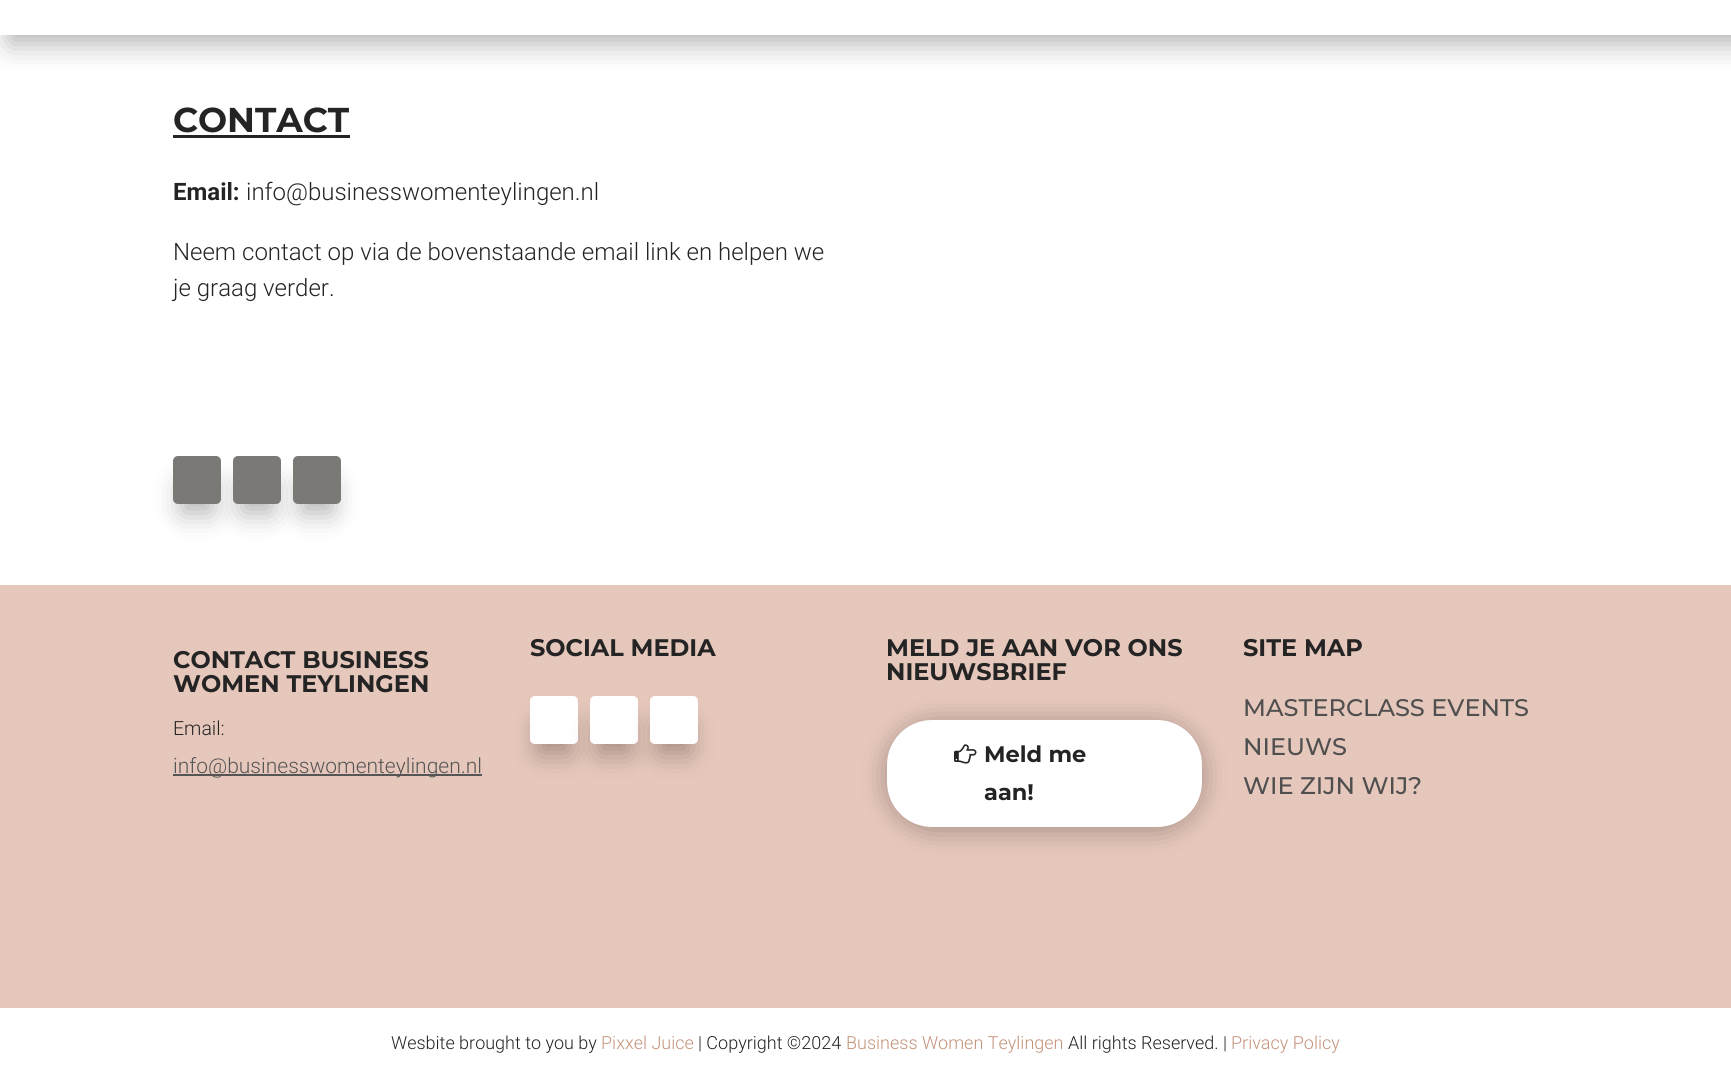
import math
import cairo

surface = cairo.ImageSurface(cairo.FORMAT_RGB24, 1731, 1071)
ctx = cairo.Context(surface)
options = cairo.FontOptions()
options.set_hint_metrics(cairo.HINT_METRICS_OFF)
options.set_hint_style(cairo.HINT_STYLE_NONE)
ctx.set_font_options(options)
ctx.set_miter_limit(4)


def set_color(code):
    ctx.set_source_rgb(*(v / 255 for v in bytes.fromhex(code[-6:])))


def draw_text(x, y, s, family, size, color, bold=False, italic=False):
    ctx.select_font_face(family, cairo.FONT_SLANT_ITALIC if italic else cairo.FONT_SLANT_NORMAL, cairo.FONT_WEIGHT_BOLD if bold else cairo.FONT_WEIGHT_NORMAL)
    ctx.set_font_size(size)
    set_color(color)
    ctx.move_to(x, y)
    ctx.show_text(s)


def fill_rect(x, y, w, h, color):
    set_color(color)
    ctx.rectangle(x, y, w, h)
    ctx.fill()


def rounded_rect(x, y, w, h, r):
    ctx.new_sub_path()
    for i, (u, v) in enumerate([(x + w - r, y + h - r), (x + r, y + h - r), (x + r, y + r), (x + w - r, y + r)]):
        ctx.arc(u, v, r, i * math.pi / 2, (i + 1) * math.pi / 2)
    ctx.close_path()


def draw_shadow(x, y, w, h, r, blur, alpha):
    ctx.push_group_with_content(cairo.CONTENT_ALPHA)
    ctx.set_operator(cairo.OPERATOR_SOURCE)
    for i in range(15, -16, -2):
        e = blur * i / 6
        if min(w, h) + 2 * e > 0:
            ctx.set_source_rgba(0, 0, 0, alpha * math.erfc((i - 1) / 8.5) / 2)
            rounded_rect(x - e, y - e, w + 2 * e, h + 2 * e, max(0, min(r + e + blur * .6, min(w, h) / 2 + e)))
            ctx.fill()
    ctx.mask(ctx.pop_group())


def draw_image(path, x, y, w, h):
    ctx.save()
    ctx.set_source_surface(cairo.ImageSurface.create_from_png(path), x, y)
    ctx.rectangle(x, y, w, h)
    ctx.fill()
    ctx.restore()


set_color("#ffffff")
ctx.paint()
set_color("#000000")
draw_shadow(9, -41, 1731, 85, 0, 13.5, 0.3)
fill_rect(0, 0, 1731, 35, "#ffffff")
draw_text(173, 132, "CONTACT", "Montserrat", 34.5, "#242425", bold=True)
fill_rect(173, 135, 177, 3, "#242425")
draw_text(173, 200, "Email:", "Roboto", 24, "#242425", bold=True)
draw_text(246, 200, "info@businesswomenteylingen.nl", "Roboto Light", 24, "#242425")
draw_text(173, 260, "Neem contact op via de bovenstaande email link en helpen we", "Roboto Light", 24, "#242425")
draw_text(173, 296, "je graag verder.", "Roboto Light", 24, "#242425")
set_color("#000000")
draw_shadow(182, 483, 30, 30, 0, 13.5, 0.3)
set_color("#7a7976")
rounded_rect(173, 456, 48, 48, 5)
ctx.fill()
set_color("#000000")
draw_shadow(242, 483, 30, 30, 0, 13.5, 0.3)
set_color("#7a7976")
rounded_rect(233, 456, 48, 48, 5)
ctx.fill()
set_color("#000000")
draw_shadow(302, 483, 30, 30, 0, 13.5, 0.3)
set_color("#7a7976")
rounded_rect(293, 456, 48, 48, 5)
ctx.fill()
fill_rect(0, 585, 1731, 423, "#e6c7bb")
draw_text(173, 668, "CONTACT BUSINESS", "Montserrat", 24, "#242425", bold=True)
draw_text(173, 692, "WOMEN TEYLINGEN", "Montserrat", 24, "#242425", bold=True)
draw_text(173, 735, "Email:", "Roboto Light", 19.5, "#242425")
fill_rect(173, 774, 309, 2, "#555555")
draw_text(173, 773, "info@businesswomenteylingen.nl", "Roboto Light", 21, "#555555")
draw_text(530, 656, "SOCIAL MEDIA", "Montserrat", 24, "#242425", bold=True)
set_color("#000000")
draw_shadow(539, 723, 30, 30, 0, 13.5, 0.3)
set_color("#ffffff")
rounded_rect(530, 696, 48, 48, 5)
ctx.fill()
set_color("#000000")
draw_shadow(599, 723, 30, 30, 0, 13.5, 0.3)
set_color("#ffffff")
rounded_rect(590, 696, 48, 48, 5)
ctx.fill()
set_color("#000000")
draw_shadow(659, 723, 30, 30, 0, 13.5, 0.3)
set_color("#ffffff")
rounded_rect(650, 696, 48, 48, 5)
ctx.fill()
draw_text(886, 656, "MELD JE AAN VOR ONS", "Montserrat", 24, "#242425", bold=True)
draw_text(886, 680, "NIEUWSBRIEF", "Montserrat", 24, "#242425", bold=True)
set_color("#000000")
draw_shadow(887, 723, 315, 107, 45, 13.5, 0.3)
set_color("#ffffff")
rounded_rect(887, 720, 315, 107, 45)
ctx.fill()
draw_image("assets/img1.png", 954, 744, 23, 20)
draw_text(984, 762, "Meld me", "Montserrat", 22.5, "#242425", bold=True)
draw_text(984, 800, "aan!", "Montserrat", 22.5, "#242425", bold=True)
draw_text(1243, 656, "SITE MAP", "Montserrat", 24, "#242425", bold=True)
draw_text(1243, 716, "MASTERCLASS EVENTS", "Montserrat Medium", 24, "#4f4f4f")
draw_text(1243, 755, "NIEUWS", "Montserrat Medium", 24, "#4f4f4f")
draw_text(1243, 794, "WIE ZIJN WIJ?", "Montserrat Medium", 24, "#4f4f4f")
draw_text(391, 1049, "Wesbite brought to you by", "Roboto Light", 18, "#242425")
draw_text(601, 1049, "Pixxel Juice", "Roboto Light", 18, "#c4937c")
draw_text(698, 1049, "| Copyright ©2024", "Roboto Light", 18, "#242425")
draw_text(846, 1049, "Business Women Teylingen", "Roboto Light", 18, "#c4937c")
draw_text(1068, 1049, "All rights Reserved. |", "Roboto Light", 18, "#242425")
draw_text(1231, 1049, "Privacy Policy", "Roboto Light", 18, "#c4937c")
surface.write_to_png("output.png")
